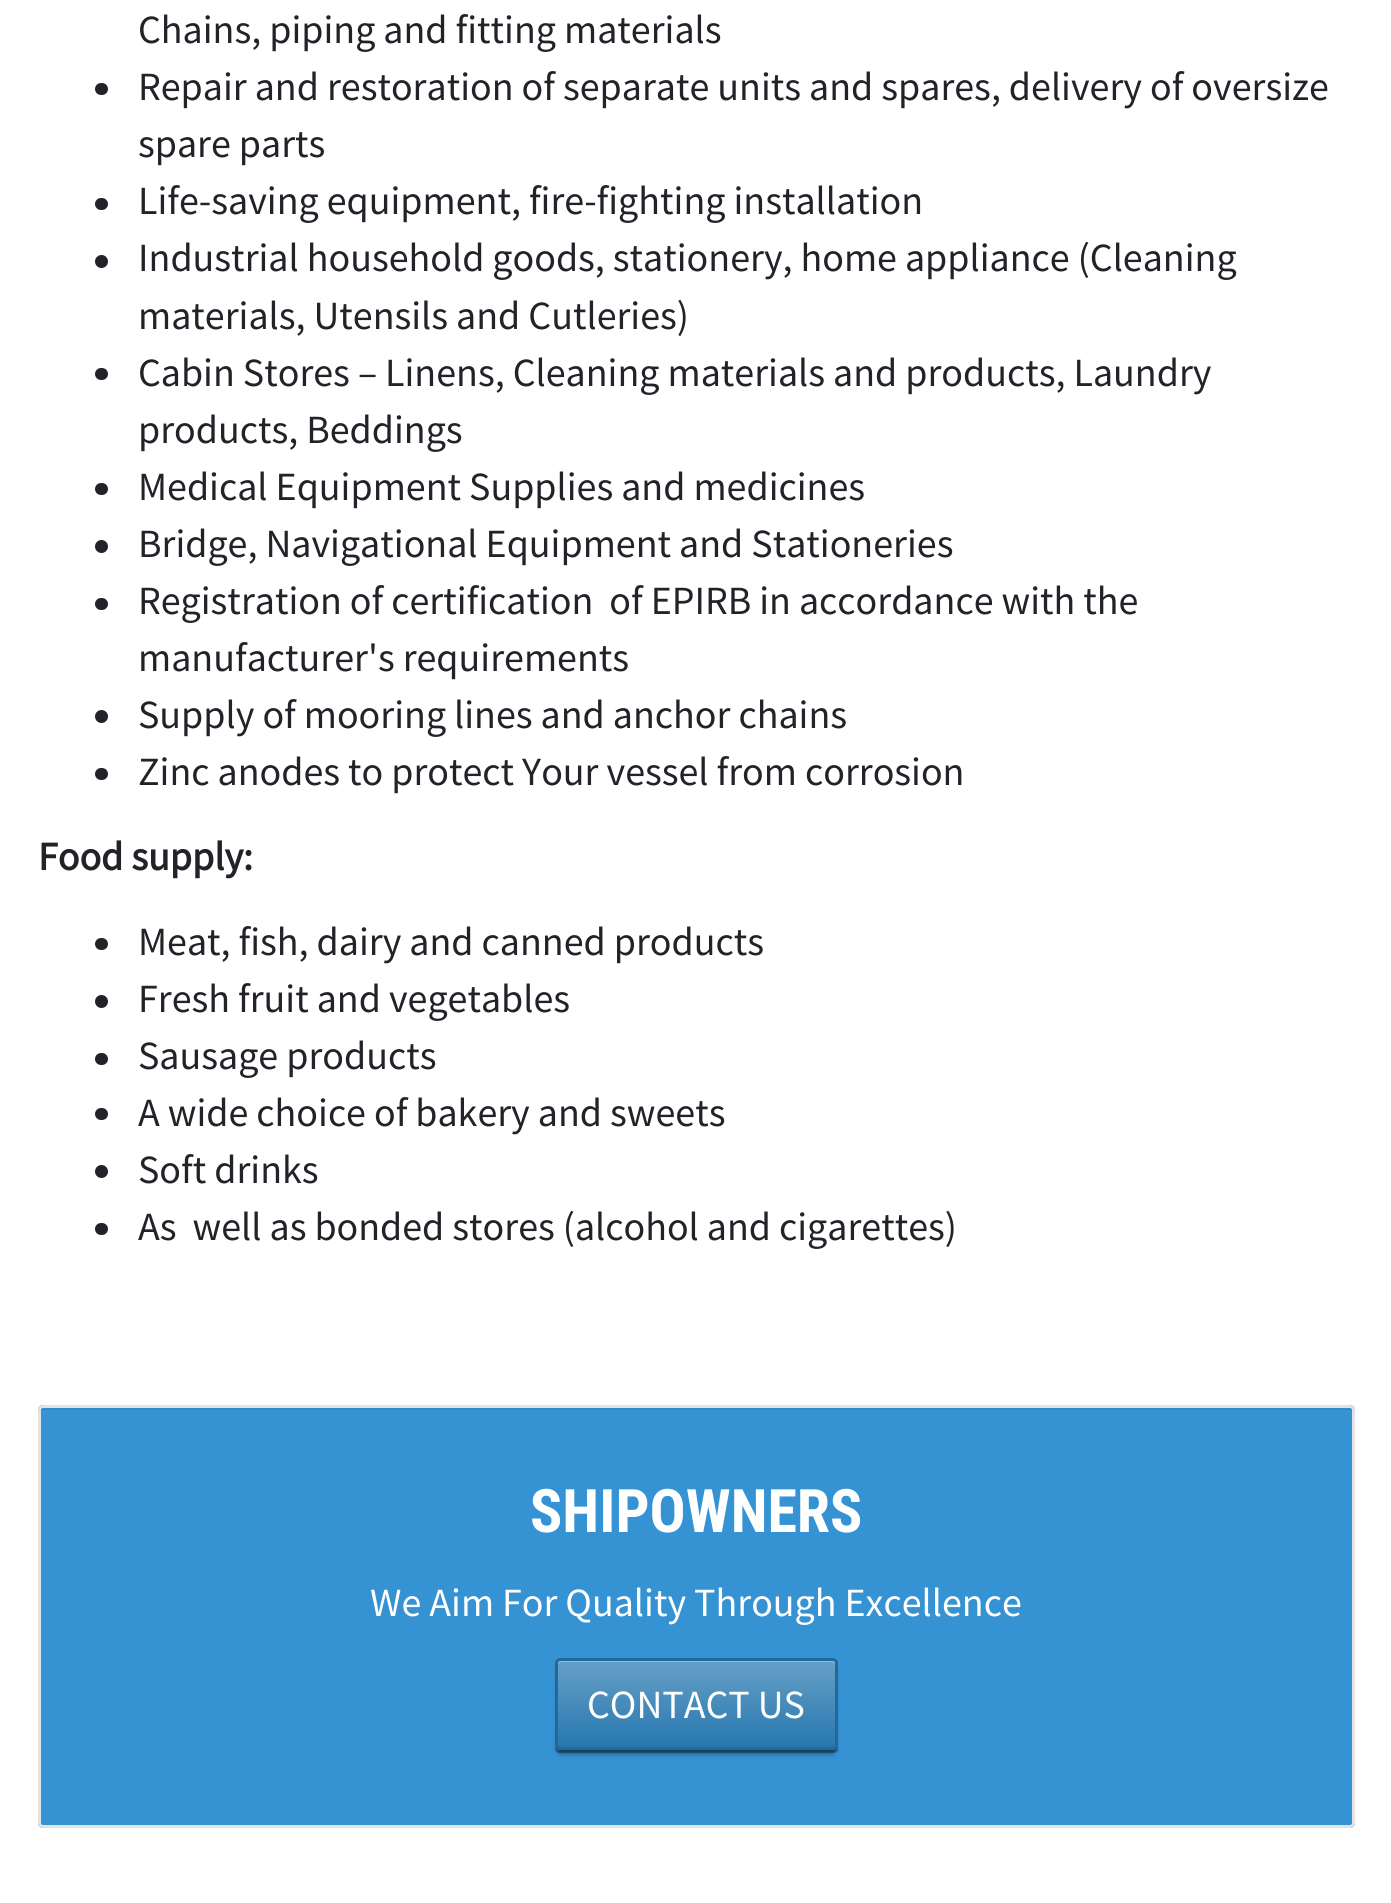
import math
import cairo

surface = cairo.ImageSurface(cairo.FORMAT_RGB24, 1391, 1903)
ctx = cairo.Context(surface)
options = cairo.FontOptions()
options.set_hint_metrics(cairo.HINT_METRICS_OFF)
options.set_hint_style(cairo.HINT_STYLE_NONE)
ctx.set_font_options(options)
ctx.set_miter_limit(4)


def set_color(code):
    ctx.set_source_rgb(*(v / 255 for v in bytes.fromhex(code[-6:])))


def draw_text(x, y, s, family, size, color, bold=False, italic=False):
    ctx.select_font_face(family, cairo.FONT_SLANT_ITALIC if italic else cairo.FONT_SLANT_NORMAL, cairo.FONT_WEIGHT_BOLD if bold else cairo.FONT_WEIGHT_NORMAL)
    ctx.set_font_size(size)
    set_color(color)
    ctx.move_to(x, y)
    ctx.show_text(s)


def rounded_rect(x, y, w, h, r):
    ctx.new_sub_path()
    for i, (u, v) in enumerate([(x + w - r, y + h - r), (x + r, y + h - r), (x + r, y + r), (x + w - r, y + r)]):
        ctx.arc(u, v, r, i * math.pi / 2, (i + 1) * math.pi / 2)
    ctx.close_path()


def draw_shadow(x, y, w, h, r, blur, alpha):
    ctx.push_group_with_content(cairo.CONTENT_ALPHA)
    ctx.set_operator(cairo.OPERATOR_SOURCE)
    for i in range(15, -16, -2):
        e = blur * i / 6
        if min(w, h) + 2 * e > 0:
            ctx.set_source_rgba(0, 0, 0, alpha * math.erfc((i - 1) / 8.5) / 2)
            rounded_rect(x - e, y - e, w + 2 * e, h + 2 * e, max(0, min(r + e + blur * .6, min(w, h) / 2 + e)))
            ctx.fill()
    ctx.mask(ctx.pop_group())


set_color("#ffffff")
ctx.paint()
draw_text(138, 43, "Chains, piping and fitting materials", "Source Sans Pro", 40, "#212328")
rounded_rect(95, 83, 13, 12, 6)
ctx.fill()
draw_text(138, 100, "Repair and restoration of separate units and spares, delivery of oversize", "Source Sans Pro", 40, "#212328")
draw_text(138, 157, "spare parts", "Source Sans Pro", 40, "#212328")
rounded_rect(95, 198, 13, 12, 6)
ctx.fill()
draw_text(138, 214, "Life-saving equipment, fire-fighting installation", "Source Sans Pro", 40, "#212328")
ctx.new_path()
ctx.arc(101.5, 261.5, 6.5, 0, 2 * math.pi)
ctx.fill()
draw_text(138, 271, "Industrial household goods, stationery, home appliance (Cleaning", "Source Sans Pro", 40, "#212328")
draw_text(138, 329, "materials, Utensils and Cutleries)", "Source Sans Pro", 40, "#212328")
rounded_rect(95, 368, 13, 12, 6)
ctx.fill()
draw_text(138, 386, "Cabin Stores – Linens, Cleaning materials and products, Laundry", "Source Sans Pro", 40, "#212328")
draw_text(138, 443, "products, Beddings", "Source Sans Pro", 40, "#212328")
rounded_rect(95, 483, 13, 12, 6)
ctx.fill()
draw_text(138, 500, "Medical Equipment Supplies and medicines", "Source Sans Pro", 40, "#212328")
ctx.new_path()
ctx.arc(101.5, 546.5, 6.5, 0, 2 * math.pi)
ctx.fill()
draw_text(138, 557, "Bridge, Navigational Equipment and Stationeries", "Source Sans Pro", 40, "#212328")
rounded_rect(95, 598, 13, 12, 6)
ctx.fill()
draw_text(138, 614, "Registration of certification  of EPIRB in accordance with the", "Source Sans Pro", 40, "#212328")
draw_text(138, 671, "manufacturer's requirements", "Source Sans Pro", 40, "#212328")
ctx.new_path()
ctx.arc(101.5, 716.5, 6.5, 0, 2 * math.pi)
ctx.fill()
draw_text(138, 728, "Supply of mooring lines and anchor chains", "Source Sans Pro", 40, "#212328")
rounded_rect(95, 768, 13, 12, 6)
ctx.fill()
draw_text(138, 785, "Zinc anodes to protect Your vessel from corrosion", "Source Sans Pro", 40, "#212328")
draw_text(38, 870, "Food supply:", "Source Sans Pro", 40, "#212328", bold=True)
rounded_rect(95, 938, 13, 12, 6)
ctx.fill()
draw_text(138, 955, "Meat, fish, dairy and canned products", "Source Sans Pro", 40, "#212328")
ctx.new_path()
ctx.arc(101.5, 1001.5, 6.5, 0, 2 * math.pi)
ctx.fill()
draw_text(138, 1012, "Fresh fruit and vegetables", "Source Sans Pro", 40, "#212328")
rounded_rect(95, 1053, 13, 12, 6)
ctx.fill()
draw_text(138, 1069, "Sausage products", "Source Sans Pro", 40, "#212328")
rounded_rect(95, 1108, 13, 12, 6)
ctx.fill()
draw_text(138, 1126, "A wide choice of bakery and sweets", "Source Sans Pro", 40, "#212328")
ctx.new_path()
ctx.arc(101.5, 1171.5, 6.5, 0, 2 * math.pi)
ctx.fill()
draw_text(138, 1183, "Soft drinks", "Source Sans Pro", 40, "#212328")
rounded_rect(95, 1223, 13, 12, 6)
ctx.fill()
draw_text(138, 1240, "As  well as bonded stores (alcohol and cigarettes)", "Source Sans Pro", 40, "#212328")
set_color("#3592d3")
rounded_rect(38, 1405, 1317, 423, 5)
ctx.fill()
set_color("#328bc8")
ctx.new_path()
ctx.move_to(42, 1410)
ctx.line_to(1350, 1410)
ctx.curve_to(1351, 1410, 1352, 1411, 1352, 1412)
ctx.line_to(1352, 1825)
ctx.curve_to(1353, 1824, 1353, 1823, 1353, 1822)
ctx.line_to(1353, 1410)
ctx.curve_to(1353, 1409, 1352, 1408, 1350, 1408)
ctx.line_to(42, 1408)
ctx.curve_to(41, 1408, 40, 1409, 40, 1410)
ctx.line_to(40, 1412)
ctx.curve_to(40, 1411, 41, 1410, 42, 1410)
ctx.close_path()
ctx.fill()
rounded_rect(39.5, 1406.5, 1314, 420, 3.5)
set_color("#e3e3e3")
ctx.set_line_width(3)
ctx.stroke()
draw_text(530, 1532, "SHIPOWNERS", "Roboto Condensed", 60, "#ffffff", bold=True)
draw_text(370, 1616, "We Aim For Quality Through Excellence", "Source Sans Pro", 40, "#ffffff")
set_color("#000000")
draw_shadow(558, 1665, 277, 88, 2.5, 2.5, 0.5)
ctx.set_source_rgba(0, 0, 0, 0.3)
ctx.new_path()
ctx.move_to(555, 1745)
ctx.line_to(555, 1748)
ctx.curve_to(555, 1751, 557, 1753, 560, 1753)
ctx.line_to(833, 1753)
ctx.curve_to(836, 1753, 838, 1751, 838, 1748)
ctx.line_to(838, 1665)
ctx.line_to(838, 1663)
ctx.line_to(838, 1745)
ctx.curve_to(838, 1748, 835, 1750, 832, 1750)
ctx.line_to(560, 1750)
ctx.curve_to(557, 1750, 555, 1748, 555, 1745)
ctx.close_path()
ctx.fill()
set_color("#2677af")
rounded_rect(558, 1660, 277, 88, 2.5)
ctx.fill()
gradient = cairo.LinearGradient(696, 1660, 696, 1748)
gradient.add_color_stop_rgba(0, 1, 1, 1, 0.3)
gradient.add_color_stop_rgba(1, 1, 1, 1, 0)
ctx.set_source(gradient)
rounded_rect(558, 1660, 277, 88, 2.5)
ctx.fill()
ctx.set_source_rgba(1, 1, 1, 0.3)
ctx.new_path()
ctx.move_to(560, 1662)
ctx.line_to(832, 1662)
ctx.curve_to(834, 1662, 835, 1664, 835, 1665)
ctx.line_to(835, 1662)
ctx.curve_to(835, 1661, 834, 1660, 832, 1660)
ctx.line_to(560, 1660)
ctx.curve_to(559, 1660, 558, 1661, 558, 1662)
ctx.line_to(558, 1665)
ctx.curve_to(558, 1664, 559, 1662, 560, 1662)
ctx.close_path()
ctx.fill()
rounded_rect(556.5, 1659.5, 280, 89, 3.5)
set_color("#21699a")
ctx.stroke()
draw_text(587, 1718, "CONTACT US", "Source Sans Pro", 40, "#ffffff")
surface.write_to_png("output.png")
